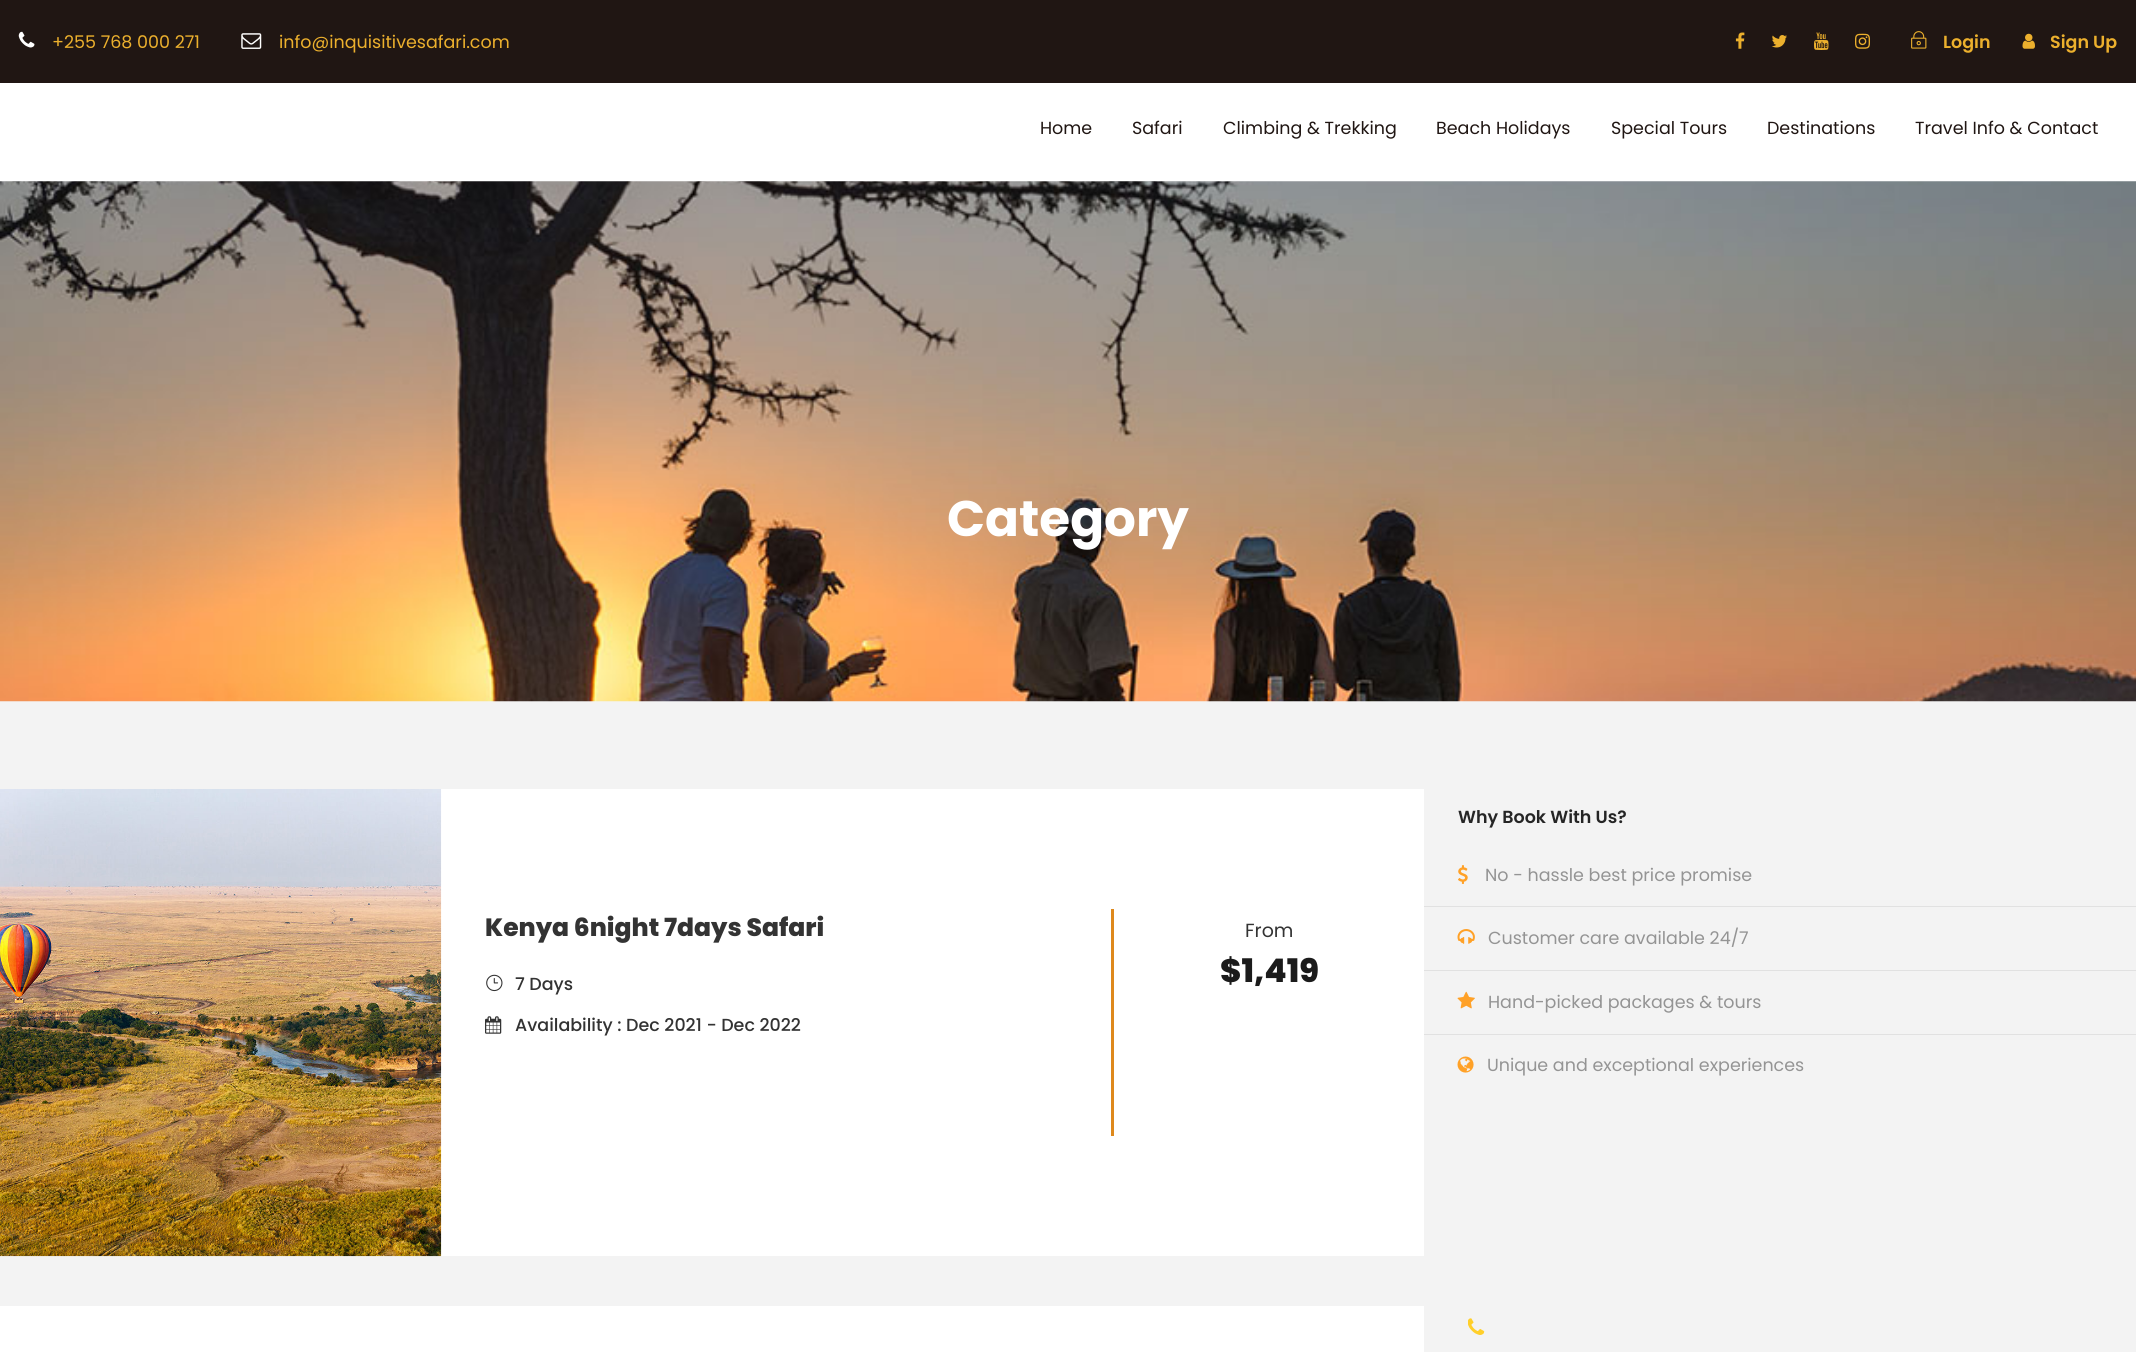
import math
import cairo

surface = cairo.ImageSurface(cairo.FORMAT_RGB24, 2136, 1352)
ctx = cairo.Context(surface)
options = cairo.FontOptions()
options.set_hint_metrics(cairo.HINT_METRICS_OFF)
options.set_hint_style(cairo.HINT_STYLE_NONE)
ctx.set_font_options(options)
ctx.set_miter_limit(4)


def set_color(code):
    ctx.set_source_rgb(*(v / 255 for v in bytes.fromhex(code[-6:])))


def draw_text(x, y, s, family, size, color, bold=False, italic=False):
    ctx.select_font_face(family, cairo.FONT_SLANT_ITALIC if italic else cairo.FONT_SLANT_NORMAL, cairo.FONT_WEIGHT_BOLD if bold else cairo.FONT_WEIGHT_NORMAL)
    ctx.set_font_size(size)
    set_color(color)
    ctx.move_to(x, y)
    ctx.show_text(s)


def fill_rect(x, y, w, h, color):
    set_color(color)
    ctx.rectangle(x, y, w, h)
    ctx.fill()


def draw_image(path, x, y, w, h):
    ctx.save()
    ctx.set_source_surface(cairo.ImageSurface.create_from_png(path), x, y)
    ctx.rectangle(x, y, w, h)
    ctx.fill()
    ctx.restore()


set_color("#ffffff")
ctx.paint()
fill_rect(0, 0, 2136, 83, "#201613")
draw_image("assets/img1.png", 18, 31, 17, 17)
draw_text(52, 48, "+255 768 000 271", "Poppins", 17.5, "#ecb02d")
draw_image("assets/img2.png", 241, 33, 21, 16)
draw_text(279, 48, "info@inquisitivesafari.com", "Poppins", 17.5, "#ecb02d")
draw_image("assets/img3.png", 1735, 32, 10, 17)
draw_image("assets/img4.png", 1771, 35, 16, 13)
draw_image("assets/img5.png", 1814, 32, 15, 18)
draw_image("assets/img6.png", 1855, 33, 15, 16)
draw_image("assets/img7.png", 1911, 31, 16, 18)
draw_text(1943, 48, "Login", "Poppins SemiBold", 17.5, "#ecb02d")
draw_image("assets/img8.png", 2022, 33, 13, 16)
draw_text(2050, 48, "Sign Up", "Poppins SemiBold", 17.5, "#ecb02d")
draw_text(1040, 134, "Home", "Poppins", 17.5, "#201613")
draw_text(1132, 134, "Safari", "Poppins", 17.5, "#201613")
draw_text(1223, 134, "Climbing & Trekking", "Poppins", 17.5, "#201613")
draw_text(1436, 134, "Beach Holidays", "Poppins", 17.5, "#201613")
draw_text(1611, 134, "Special Tours", "Poppins", 17.5, "#201613")
draw_text(1767, 134, "Destinations", "Poppins", 17.5, "#201613")
draw_text(1915, 134, "Travel Info & Contact", "Poppins", 17.5, "#201613")
fill_rect(0, 701, 2136, 651, "#f3f3f3")
draw_image("assets/img9.png", 0, 181, 2136, 521)
draw_text(947, 536, "Category", "Poppins", 50, "#ffffff", bold=True)
fill_rect(441, 789, 983, 467, "#ffffff")
draw_image("assets/img10.png", 0, 789, 442, 468)
draw_text(485, 936, "Kenya 6night 7days Safari", "Poppins ExtraBold", 25, "#333333")
draw_image("assets/img11.png", 486, 974, 17, 18)
draw_text(515, 990, "7 Days", "Poppins Medium", 17.5, "#333333")
draw_image("assets/img12.png", 485, 1016, 17, 18)
draw_text(515, 1031, "Availability : Dec 2021 - Dec 2022", "Poppins Medium", 17.5, "#333333")
fill_rect(1111, 909, 3, 227, "#de891c")
draw_text(1245, 937, "From", "Poppins", 19, "#333333")
draw_text(1220, 982, "$1,419", "Poppins ExtraBold", 32.5, "#1b1b1b")
fill_rect(0, 1306, 1424, 46, "#ffffff")
draw_text(1458, 823, "Why Book With Us?", "Poppins SemiBold", 17.5, "#252525")
draw_image("assets/img13.png", 1458, 865, 10, 19)
draw_text(1485, 881, "No - hassle best price promise", "Poppins", 17.5, "#949494")
fill_rect(1424, 906, 712, 1, "#e1e1e1")
draw_image("assets/img14.png", 1457, 929, 18, 15)
draw_text(1488, 944, "Customer care available 24/7", "Poppins", 17.5, "#949494")
fill_rect(1424, 970, 712, 1, "#e1e1e1")
draw_image("assets/img15.png", 1457, 991, 18, 18)
draw_text(1488, 1008, "Hand-picked packages & tours", "Poppins", 17.5, "#949494")
fill_rect(1424, 1034, 712, 1, "#e1e1e1")
draw_image("assets/img16.png", 1457, 1056, 17, 17)
draw_text(1487, 1071, "Unique and exceptional experiences", "Poppins", 17.5, "#949494")
draw_image("assets/img17.png", 1468, 1318, 17, 17)
surface.write_to_png("output.png")
